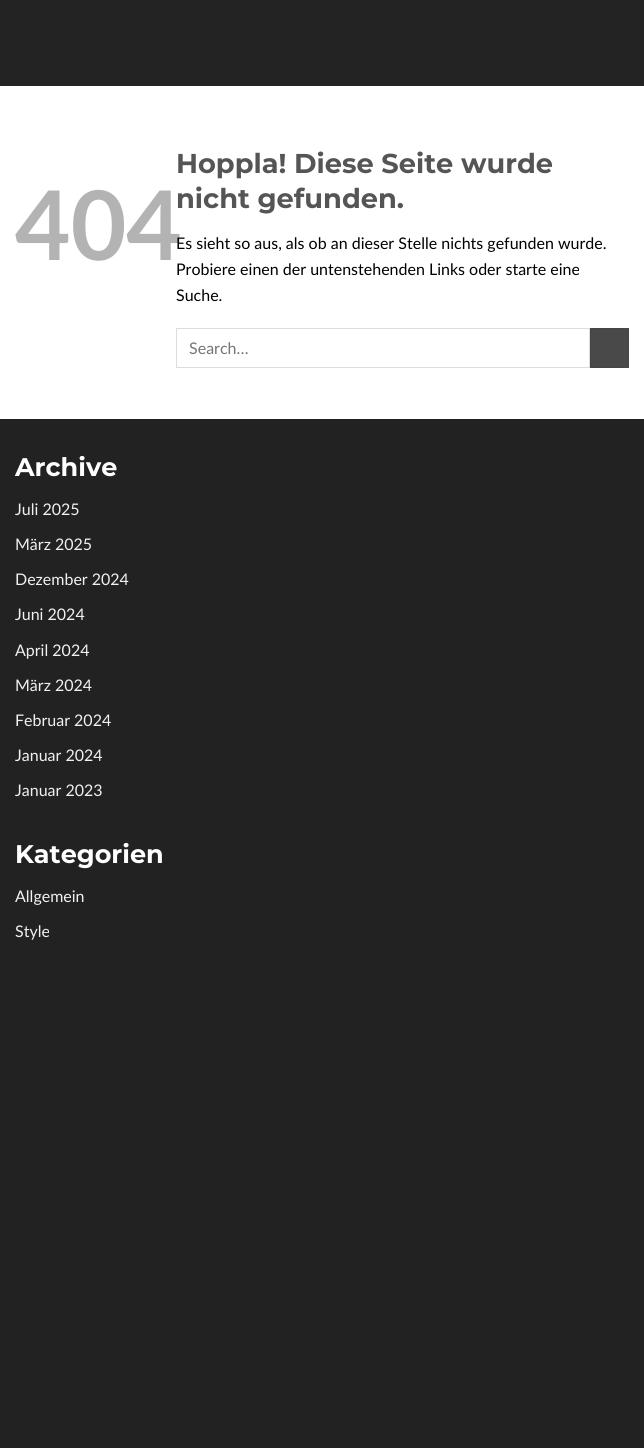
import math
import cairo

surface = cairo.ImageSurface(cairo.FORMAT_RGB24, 644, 1448)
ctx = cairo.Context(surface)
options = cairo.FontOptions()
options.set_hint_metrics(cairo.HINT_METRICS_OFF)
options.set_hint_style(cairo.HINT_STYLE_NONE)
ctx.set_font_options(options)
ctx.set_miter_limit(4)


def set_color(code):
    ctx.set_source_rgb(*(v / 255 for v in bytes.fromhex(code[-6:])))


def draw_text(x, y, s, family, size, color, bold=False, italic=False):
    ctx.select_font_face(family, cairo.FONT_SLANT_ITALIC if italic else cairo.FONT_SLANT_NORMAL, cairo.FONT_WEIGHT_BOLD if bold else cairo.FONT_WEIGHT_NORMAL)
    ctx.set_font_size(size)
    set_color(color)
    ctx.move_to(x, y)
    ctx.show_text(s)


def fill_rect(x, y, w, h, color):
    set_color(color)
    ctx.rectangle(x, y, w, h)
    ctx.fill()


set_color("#ffffff")
ctx.paint()
fill_rect(0, 0, 644, 86, "#232323")
draw_text(15, 260, "404", "Lato", 96, "#b3b3b3", bold=True)
draw_text(176, 173, "Hoppla! Diese Seite wurde", "Montserrat", 27.25, "#555555", bold=True)
draw_text(176, 208, "nicht gefunden.", "Montserrat", 27.25, "#555555", bold=True)
draw_text(176, 249, "Es sieht so aus, als ob an dieser Stelle nichts gefunden wurde.", "Lato", 16, "#000000")
draw_text(176, 275, "Probiere einen der untenstehenden Links oder starte eine", "Lato", 16, "#000000")
draw_text(176, 301, "Suche.", "Lato", 16, "#000000")
ctx.rectangle(176.5, 328.5, 413, 39)
set_color("#dddddd")
ctx.set_line_width(1)
ctx.stroke()
draw_text(189, 354, "Search…", "Lato", 16, "#757575")
set_color("#494949")
ctx.rectangle(590.5, 328.5, 38, 39)
ctx.fill_preserve()
set_color("#454545")
ctx.stroke()
fill_rect(0, 420, 644, 1028, "#222222")
fill_rect(0, 419, 644, 1, "#202020")
draw_text(15, 476, "Archive", "Montserrat", 25.5, "#ffffff", bold=True)
draw_text(15, 515, "Juli 2025", "Lato", 16, "#f1f1f1")
draw_text(15, 550, "März 2025", "Lato", 16, "#f1f1f1")
draw_text(15, 585, "Dezember 2024", "Lato", 16, "#f1f1f1")
draw_text(15, 620, "Juni 2024", "Lato", 16, "#f1f1f1")
draw_text(15, 656, "April 2024", "Lato", 16, "#f1f1f1")
draw_text(15, 691, "März 2024", "Lato", 16, "#f1f1f1")
draw_text(15, 726, "Februar 2024", "Lato", 16, "#f1f1f1")
draw_text(15, 761, "Januar 2024", "Lato", 16, "#f1f1f1")
draw_text(15, 796, "Januar 2023", "Lato", 16, "#f1f1f1")
draw_text(15, 863, "Kategorien", "Montserrat", 25.5, "#ffffff", bold=True)
draw_text(15, 902, "Allgemein", "Lato", 16, "#f1f1f1")
draw_text(15, 937, "Style", "Lato", 16, "#f1f1f1")
surface.write_to_png("output.png")
